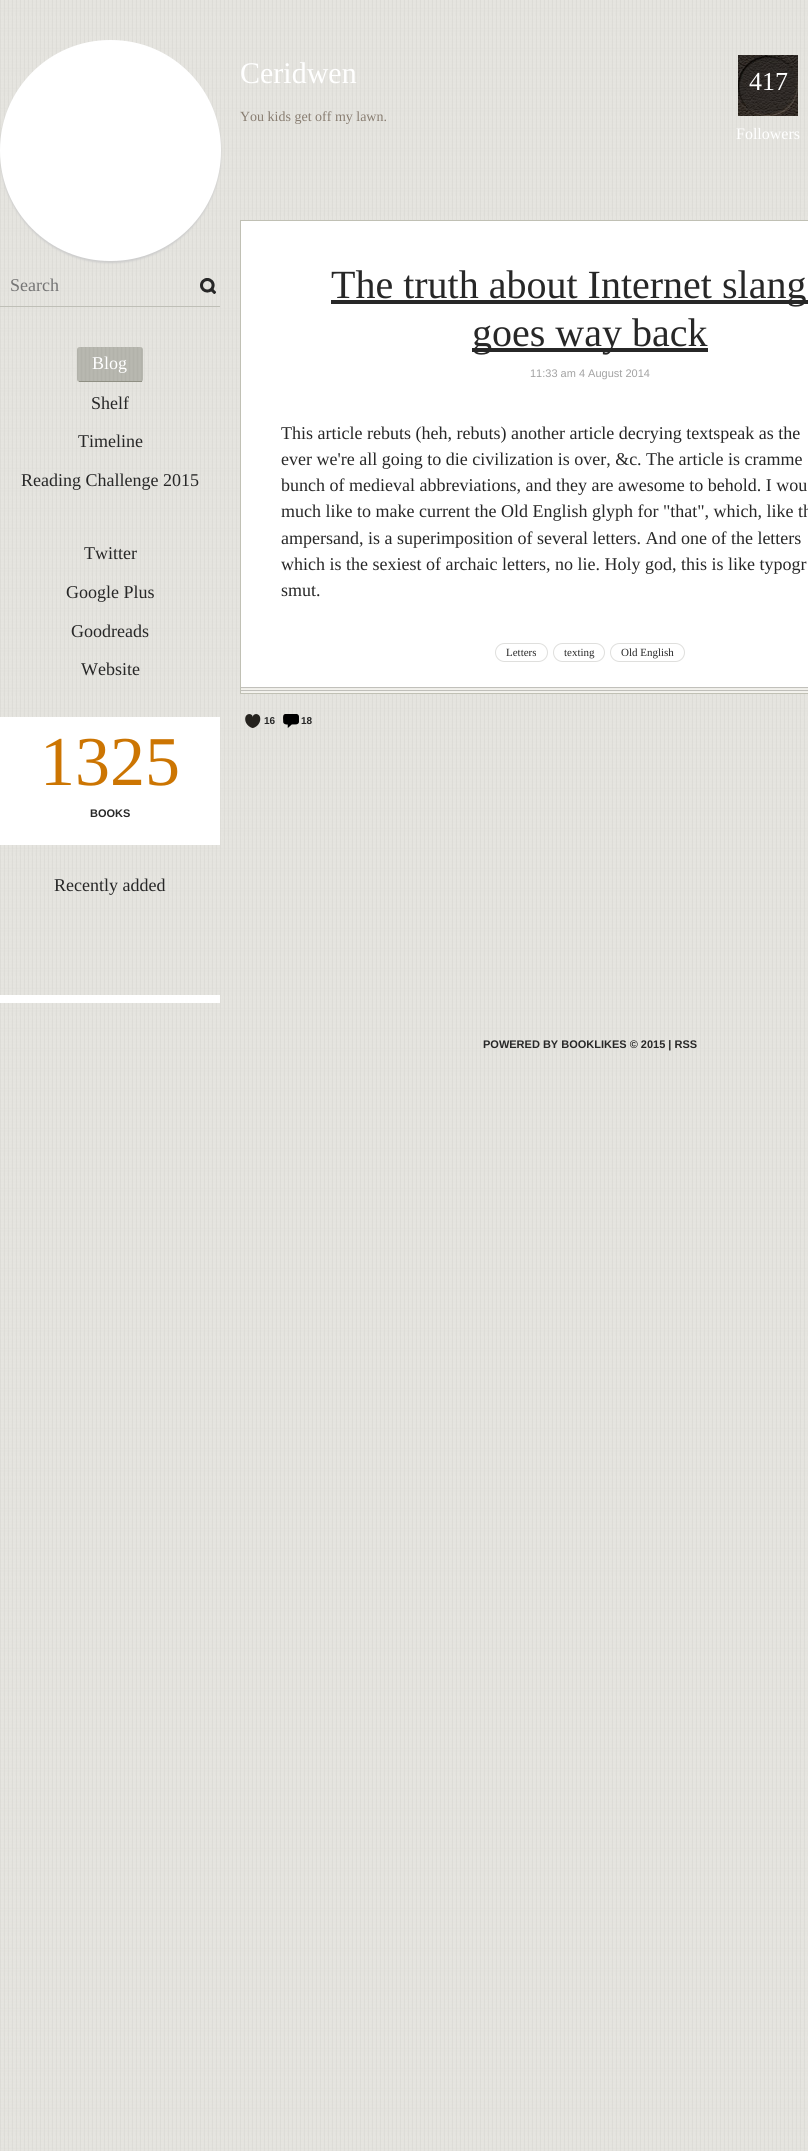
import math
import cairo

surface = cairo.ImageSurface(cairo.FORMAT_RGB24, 808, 2151)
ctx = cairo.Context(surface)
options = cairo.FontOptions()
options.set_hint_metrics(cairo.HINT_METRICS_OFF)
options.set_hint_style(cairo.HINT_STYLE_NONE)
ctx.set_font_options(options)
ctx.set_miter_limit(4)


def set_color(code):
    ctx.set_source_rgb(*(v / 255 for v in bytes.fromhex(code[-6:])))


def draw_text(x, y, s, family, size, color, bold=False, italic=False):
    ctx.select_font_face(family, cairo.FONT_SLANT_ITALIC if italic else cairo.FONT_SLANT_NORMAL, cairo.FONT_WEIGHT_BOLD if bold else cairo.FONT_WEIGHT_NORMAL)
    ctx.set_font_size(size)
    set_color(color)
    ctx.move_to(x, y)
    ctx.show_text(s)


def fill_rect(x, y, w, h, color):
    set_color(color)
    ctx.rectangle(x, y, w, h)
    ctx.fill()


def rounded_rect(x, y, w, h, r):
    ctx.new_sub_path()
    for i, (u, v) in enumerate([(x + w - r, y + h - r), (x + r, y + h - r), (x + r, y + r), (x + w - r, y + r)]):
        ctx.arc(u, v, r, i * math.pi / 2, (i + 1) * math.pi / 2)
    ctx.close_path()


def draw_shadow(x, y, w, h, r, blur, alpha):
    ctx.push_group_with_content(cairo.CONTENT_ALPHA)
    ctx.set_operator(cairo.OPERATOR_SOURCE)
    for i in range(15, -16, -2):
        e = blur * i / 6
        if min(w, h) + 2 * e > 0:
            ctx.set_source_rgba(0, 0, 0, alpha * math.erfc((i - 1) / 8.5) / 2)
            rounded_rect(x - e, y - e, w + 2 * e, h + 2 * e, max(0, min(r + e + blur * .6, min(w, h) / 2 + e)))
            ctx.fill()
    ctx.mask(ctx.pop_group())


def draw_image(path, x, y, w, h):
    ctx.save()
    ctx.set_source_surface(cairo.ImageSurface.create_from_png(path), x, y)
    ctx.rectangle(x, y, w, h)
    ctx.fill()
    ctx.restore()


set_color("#ffffff")
ctx.paint()
draw_image("assets/img1.png", 0, 0, 808, 2151)
set_color("#cccccc")
draw_shadow(0, 42, 221, 221, 110, 1, 1)
set_color("#ffffff")
rounded_rect(0, 40, 221, 221, 110)
ctx.fill()
draw_text(240, 83, "Ceridwen", "Liberation Serif", 30, "#ffffff")
draw_image("assets/img2.png", 738, 55, 60, 61)
draw_text(749, 90, "417", "Liberation Serif", 26, "#ffffff")
draw_text(736, 139, "Followers", "Liberation Serif", 16, "#ffffff")
draw_text(240, 121, "You kids get off my lawn.", "Liberation Serif", 14, "#887d71")
fill_rect(0, 306, 220, 1, "#bfbfb7")
draw_text(10, 291, "Search", "Liberation Serif", 18, "#757575")
draw_image("assets/img3.png", 200, 278, 16, 16)
draw_image("assets/img4.png", 77, 347, 66, 35)
fill_rect(79, 381, 63, 1, "#8f8f83")
draw_text(92, 369, "Blog", "Liberation Serif", 18, "#ffffff")
draw_text(91, 409, "Shelf", "Liberation Serif", 18, "#272727")
draw_text(78, 447, "Timeline", "Liberation Serif", 18, "#272727")
draw_text(21, 486, "Reading Challenge 2015", "Liberation Serif", 18, "#272727")
draw_text(84, 559, "Twitter", "Liberation Serif", 18, "#272727")
draw_text(66, 598, "Google Plus", "Liberation Serif", 18, "#272727")
draw_text(71, 637, "Goodreads", "Liberation Serif", 18, "#272727")
draw_text(81, 675, "Website", "Liberation Serif", 18, "#272727")
fill_rect(0, 717, 220, 128, "#ffffff")
draw_text(40, 785, "1325", "Liberation Serif", 70, "#cc7502")
draw_text(90, 817, "BOOKS", "Liberation Sans", 11, "#272727", bold=True)
draw_text(54, 891, "Recently added", "Liberation Serif", 18, "#272727")
fill_rect(0, 995, 220, 8, "#ffffff")
fill_rect(241, 221, 567, 466, "#ffffff")
ctx.rectangle(240.5, 220.5, 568, 473)
set_color("#c0c0b4")
ctx.set_line_width(1)
ctx.stroke()
fill_rect(331, 300, 477, 4, "#272727")
draw_text(331, 298, "The truth about Internet slang", "Liberation Serif", 40, "#272727")
fill_rect(472, 348, 236, 4, "#272727")
draw_text(472, 346, "goes way back", "Liberation Serif", 40, "#272727")
draw_text(530, 377, "11:33 am 4 August 2014", "Liberation Sans", 11, "#a2a2a2")
draw_text(281, 439, "This article rebuts (heh, rebuts) another article decrying textspeak as the", "Liberation Serif", 18, "#272727")
draw_text(281, 465, "ever we're all going to die civilization is over, &c. The article is cramme", "Liberation Serif", 18, "#272727")
draw_text(281, 491, "bunch of medieval abbreviations, and they are awesome to behold. I wou", "Liberation Serif", 18, "#272727")
draw_text(281, 517, "much like to make current the Old English glyph for \"that\", which, like th", "Liberation Serif", 18, "#272727")
draw_text(281, 544, "ampersand, is a superimposition of several letters. And one of the letters", "Liberation Serif", 18, "#272727")
draw_text(281, 570, "which is the sexiest of archaic letters, no lie. Holy god, this is like typogr", "Liberation Serif", 18, "#272727")
draw_text(281, 596, "smut.", "Liberation Serif", 18, "#272727")
rounded_rect(495.5, 643.5, 52, 18, 9)
set_color("#dfdfdd")
ctx.stroke()
draw_text(506, 656, "Letters", "Liberation Serif", 11, "#272727")
rounded_rect(553.5, 643.5, 51, 18, 9)
set_color("#dfdfdd")
ctx.stroke()
draw_text(564, 656, "texting", "Liberation Serif", 11, "#272727")
rounded_rect(610.5, 643.5, 74, 18, 9)
set_color("#dfdfdd")
ctx.stroke()
draw_text(621, 656, "Old English", "Liberation Serif", 11, "#272727")
draw_image("assets/img5.png", 241, 687, 567, 6)
draw_image("assets/img6.png", 245, 714, 16, 14)
draw_text(264, 724, "16", "Liberation Sans", 10, "#272727", bold=True)
draw_image("assets/img7.png", 283, 714, 16, 14)
draw_text(301, 724, "18", "Liberation Sans", 10, "#272727", bold=True)
draw_text(483, 1048, "POWERED BY BOOKLIKES © 2015 | RSS", "Liberation Sans", 11, "#272727", bold=True)
surface.write_to_png("output.png")
